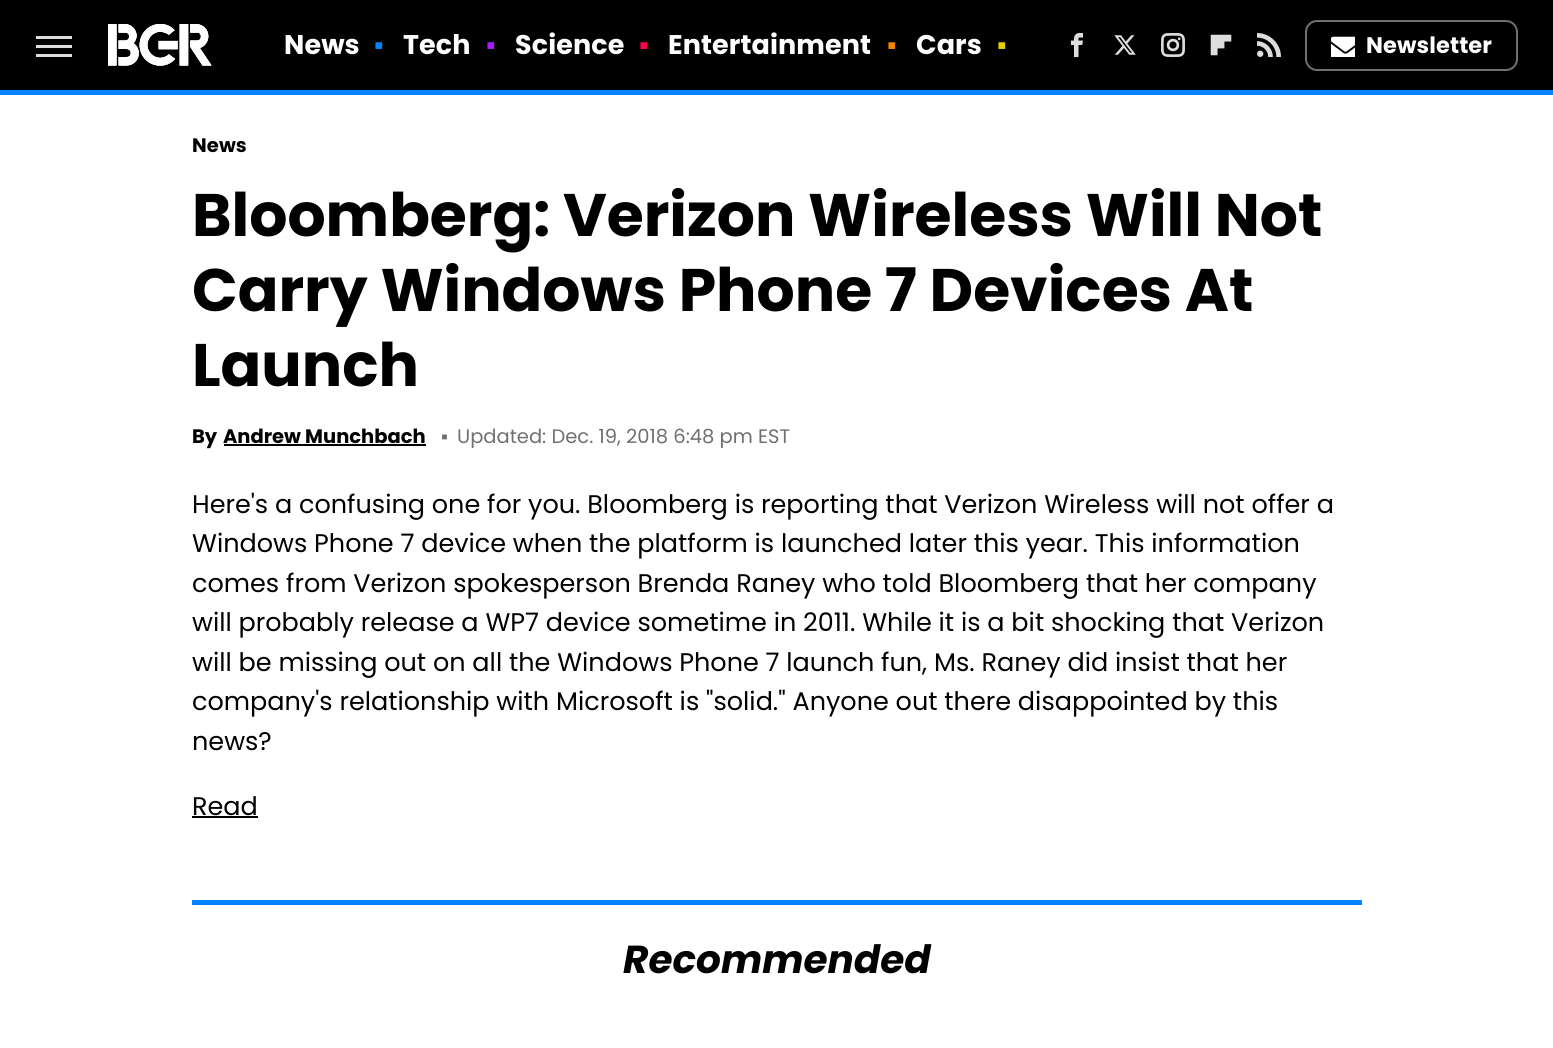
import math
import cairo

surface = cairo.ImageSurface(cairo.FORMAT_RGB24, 1553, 1048)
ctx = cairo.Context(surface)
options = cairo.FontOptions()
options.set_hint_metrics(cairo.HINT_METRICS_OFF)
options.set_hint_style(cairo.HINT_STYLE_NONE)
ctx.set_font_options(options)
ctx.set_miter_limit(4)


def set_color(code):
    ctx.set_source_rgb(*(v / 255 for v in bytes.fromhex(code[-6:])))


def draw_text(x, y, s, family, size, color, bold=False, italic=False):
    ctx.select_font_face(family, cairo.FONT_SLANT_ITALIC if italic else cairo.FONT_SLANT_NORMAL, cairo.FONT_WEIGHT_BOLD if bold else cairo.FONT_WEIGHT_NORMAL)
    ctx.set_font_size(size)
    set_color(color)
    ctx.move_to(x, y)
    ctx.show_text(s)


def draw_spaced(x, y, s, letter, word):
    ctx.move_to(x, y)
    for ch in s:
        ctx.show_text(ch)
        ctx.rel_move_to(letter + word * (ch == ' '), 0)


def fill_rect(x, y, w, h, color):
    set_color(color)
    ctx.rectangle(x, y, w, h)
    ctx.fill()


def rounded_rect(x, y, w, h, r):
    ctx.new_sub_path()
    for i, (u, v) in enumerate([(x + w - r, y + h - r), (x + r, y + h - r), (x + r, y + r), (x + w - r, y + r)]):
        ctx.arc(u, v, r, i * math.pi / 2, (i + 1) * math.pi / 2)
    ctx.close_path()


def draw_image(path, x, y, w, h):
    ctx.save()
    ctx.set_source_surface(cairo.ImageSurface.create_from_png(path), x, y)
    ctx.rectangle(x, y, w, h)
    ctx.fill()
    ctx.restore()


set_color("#ffffff")
ctx.paint()
fill_rect(0, 0, 1553, 90, "#000000")
fill_rect(0, 90, 1553, 5, "#0284ff")
fill_rect(36, 36, 36, 3, "#dddddd")
fill_rect(36, 45, 36, 3, "#dddddd")
fill_rect(36, 54, 36, 3, "#dddddd")
draw_image("assets/img1.png", 108, 24, 104, 42)
ctx.select_font_face("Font", cairo.FONT_SLANT_NORMAL, cairo.FONT_WEIGHT_BOLD)
ctx.set_font_size(27)
set_color("#ffffff")
draw_spaced(284, 54, "News", 0.1, 0)
ctx.select_font_face("Liberation Sans")
set_color("#0284ff")
draw_spaced(374, 54, "▪", 0.1, 0)
ctx.select_font_face("Font", cairo.FONT_SLANT_NORMAL, cairo.FONT_WEIGHT_BOLD)
set_color("#ffffff")
draw_spaced(403, 54, "Tech", 0.1, 0)
ctx.select_font_face("Liberation Sans")
set_color("#ab19ff")
draw_spaced(486, 54, "▪", 0.1, 0)
ctx.select_font_face("Font", cairo.FONT_SLANT_NORMAL, cairo.FONT_WEIGHT_BOLD)
set_color("#ffffff")
draw_spaced(515, 54, "Science", 0.1, 0)
ctx.select_font_face("Liberation Sans")
set_color("#ff024a")
draw_spaced(639, 54, "▪", 0.1, 0)
ctx.select_font_face("Font", cairo.FONT_SLANT_NORMAL, cairo.FONT_WEIGHT_BOLD)
set_color("#ffffff")
draw_spaced(668, 54, "Entertainment", 0.1, 0)
ctx.select_font_face("Liberation Sans")
set_color("#f38600")
draw_spaced(887, 54, "▪", 0.1, 0)
ctx.select_font_face("Font", cairo.FONT_SLANT_NORMAL, cairo.FONT_WEIGHT_BOLD)
set_color("#ffffff")
draw_spaced(916, 54, "Cars", 0.1, 0)
ctx.select_font_face("Liberation Sans")
set_color("#e2d300")
draw_spaced(997, 54, "▪", 0.1, 0)
draw_image("assets/img2.png", 1071, 33, 12, 24)
draw_image("assets/img3.png", 1114, 35, 22, 20)
draw_image("assets/img4.png", 1161, 33, 24, 24)
draw_image("assets/img5.png", 1210, 34, 22, 22)
draw_image("assets/img6.png", 1257, 33, 24, 24)
rounded_rect(1306, 21, 211, 49, 11)
set_color("#707070")
ctx.stroke()
draw_image("assets/img7.png", 1331, 36, 24, 21)
ctx.select_font_face("Font", cairo.FONT_SLANT_NORMAL, cairo.FONT_WEIGHT_BOLD)
ctx.set_font_size(22.5)
set_color("#ffffff")
draw_spaced(1366, 53, "Newsletter", 0.1, 0)
ctx.set_font_size(19.5)
set_color("#000000")
draw_spaced(192, 152, "News", 0.1, 0)
draw_text(192, 236, "Bloomberg: Verizon Wireless Will Not", "Font", 60, "#000000", bold=True)
draw_text(192, 311, "Carry Windows Phone 7 Devices At", "Font", 60, "#000000", bold=True)
draw_text(192, 386, "Launch", "Font", 60, "#000000", bold=True)
draw_text(192, 443, "By", "Font", 19.5, "#000000", bold=True)
draw_text(223, 443, "Andrew Munchbach", "Font", 19.5, "#000000", bold=True)
fill_rect(224, 444, 202, 2, "#000000")
draw_text(441, 443, "▪", "Liberation Sans", 19.5, "#707070")
draw_text(457, 443, "Updated: Dec. 19, 2018 6:48 pm EST", "poppins", 19.5, "#707070")
draw_text(192, 513, "Here's a confusing one for you. Bloomberg is reporting that Verizon Wireless will not offer a", "poppins", 25.5, "#000000")
draw_text(192, 552, "Windows Phone 7 device when the platform is launched later this year. This information", "poppins", 25.5, "#000000")
draw_text(192, 592, "comes from Verizon spokesperson Brenda Raney who told Bloomberg that her company", "poppins", 25.5, "#000000")
draw_text(192, 631, "will probably release a WP7 device sometime in 2011. While it is a bit shocking that Verizon", "poppins", 25.5, "#000000")
draw_text(192, 671, "will be missing out on all the Windows Phone 7 launch fun, Ms. Raney did insist that her", "poppins", 25.5, "#000000")
draw_text(192, 710, "company's relationship with Microsoft is \"solid.\" Anyone out there disappointed by this", "poppins", 25.5, "#000000")
draw_text(192, 750, "news?", "poppins", 25.5, "#000000")
draw_text(192, 815, "Read", "poppins", 25.5, "#000000")
fill_rect(192, 816, 66, 2, "#000000")
fill_rect(192, 900, 1170, 5, "#0284ff")
draw_text(623, 973, "Recommended", "poppins", 39, "#000000", bold=True, italic=True)
surface.write_to_png("output.png")
